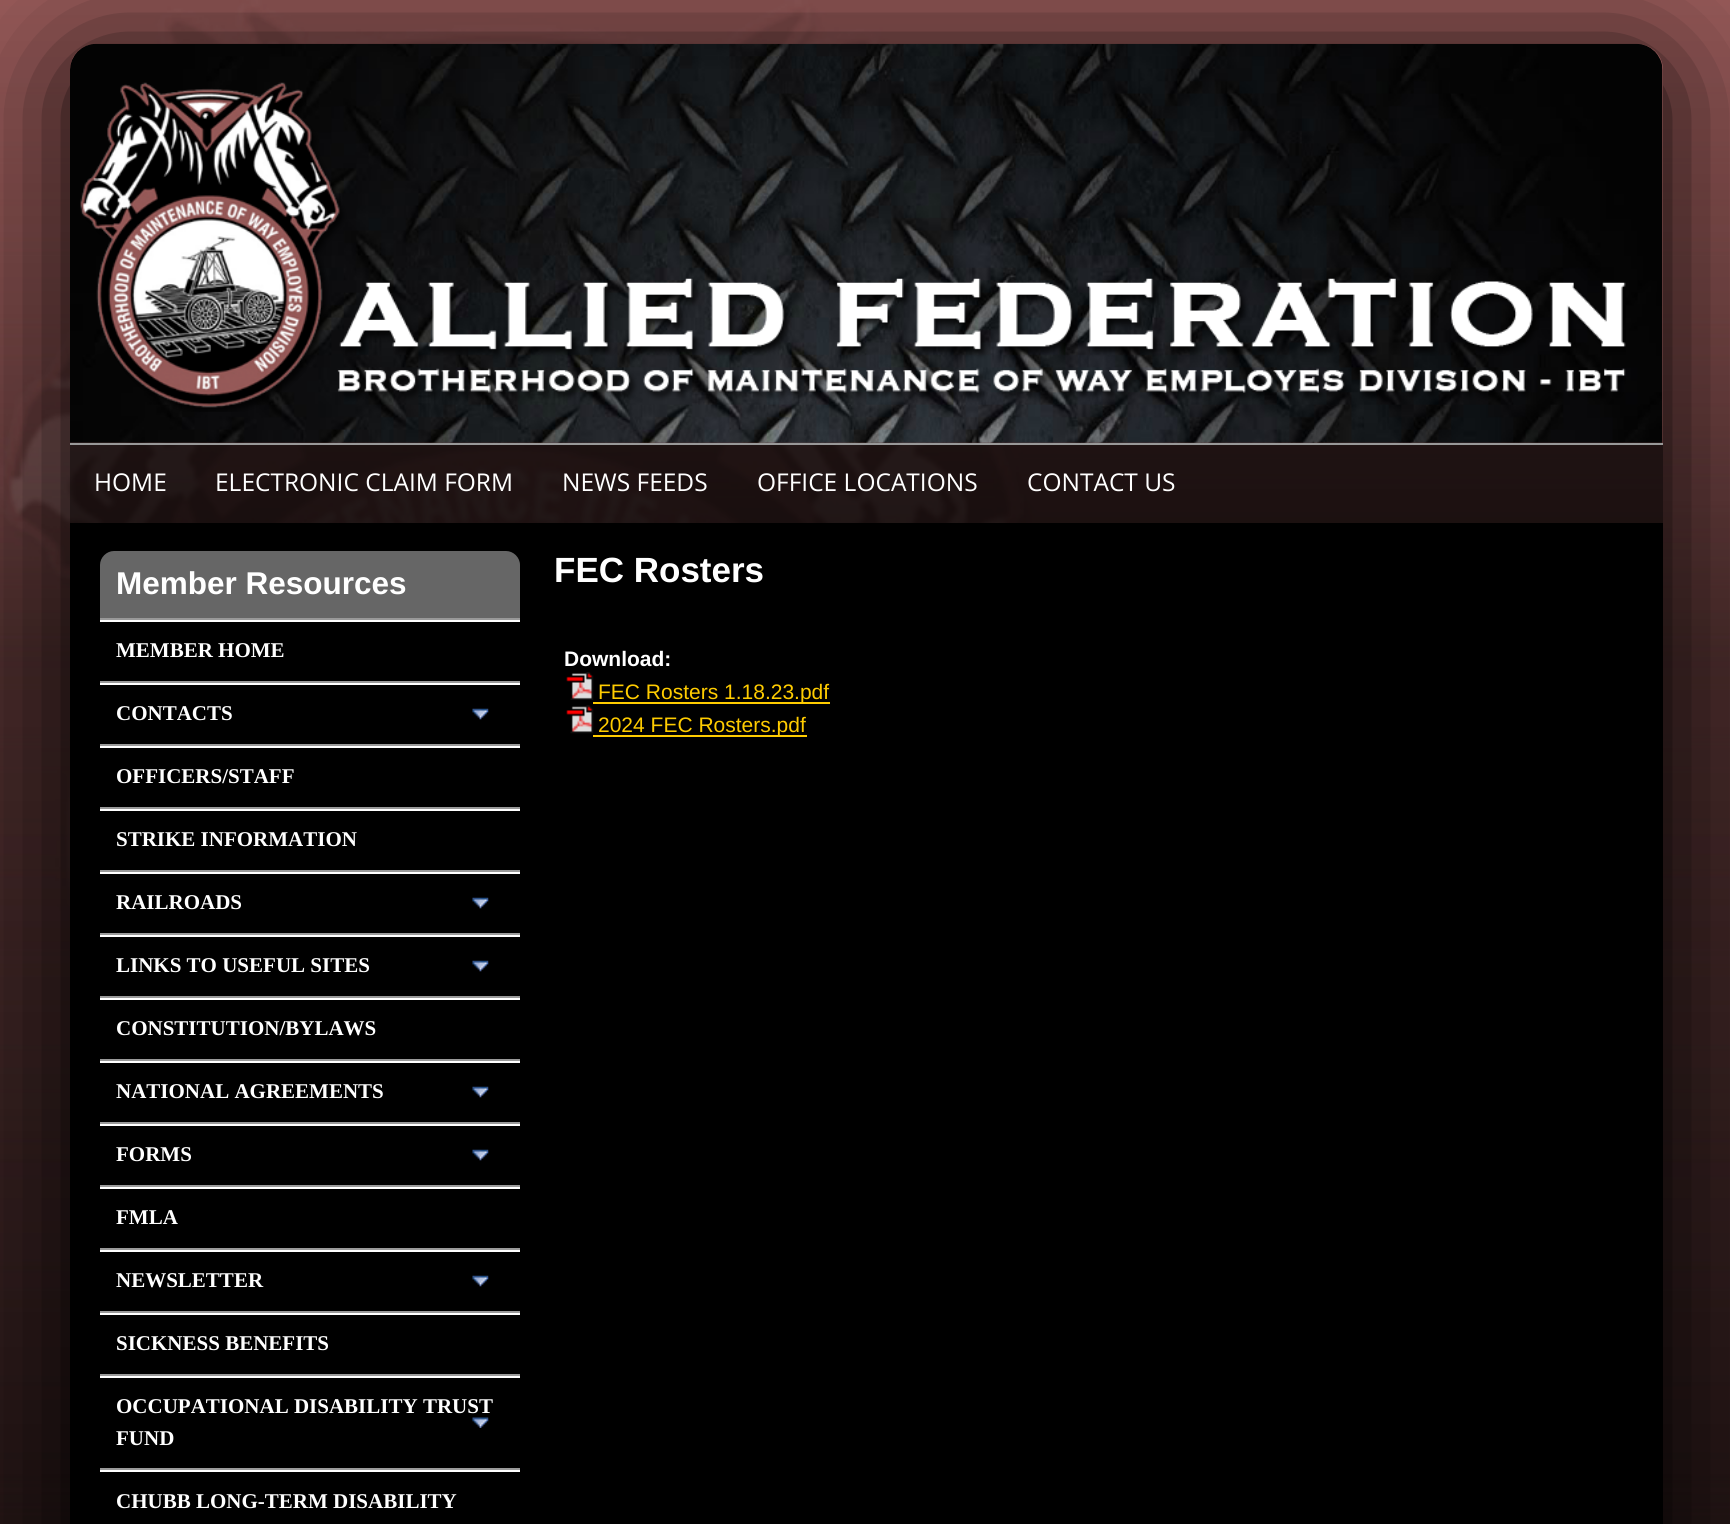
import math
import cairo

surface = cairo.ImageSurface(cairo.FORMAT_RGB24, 1730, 1524)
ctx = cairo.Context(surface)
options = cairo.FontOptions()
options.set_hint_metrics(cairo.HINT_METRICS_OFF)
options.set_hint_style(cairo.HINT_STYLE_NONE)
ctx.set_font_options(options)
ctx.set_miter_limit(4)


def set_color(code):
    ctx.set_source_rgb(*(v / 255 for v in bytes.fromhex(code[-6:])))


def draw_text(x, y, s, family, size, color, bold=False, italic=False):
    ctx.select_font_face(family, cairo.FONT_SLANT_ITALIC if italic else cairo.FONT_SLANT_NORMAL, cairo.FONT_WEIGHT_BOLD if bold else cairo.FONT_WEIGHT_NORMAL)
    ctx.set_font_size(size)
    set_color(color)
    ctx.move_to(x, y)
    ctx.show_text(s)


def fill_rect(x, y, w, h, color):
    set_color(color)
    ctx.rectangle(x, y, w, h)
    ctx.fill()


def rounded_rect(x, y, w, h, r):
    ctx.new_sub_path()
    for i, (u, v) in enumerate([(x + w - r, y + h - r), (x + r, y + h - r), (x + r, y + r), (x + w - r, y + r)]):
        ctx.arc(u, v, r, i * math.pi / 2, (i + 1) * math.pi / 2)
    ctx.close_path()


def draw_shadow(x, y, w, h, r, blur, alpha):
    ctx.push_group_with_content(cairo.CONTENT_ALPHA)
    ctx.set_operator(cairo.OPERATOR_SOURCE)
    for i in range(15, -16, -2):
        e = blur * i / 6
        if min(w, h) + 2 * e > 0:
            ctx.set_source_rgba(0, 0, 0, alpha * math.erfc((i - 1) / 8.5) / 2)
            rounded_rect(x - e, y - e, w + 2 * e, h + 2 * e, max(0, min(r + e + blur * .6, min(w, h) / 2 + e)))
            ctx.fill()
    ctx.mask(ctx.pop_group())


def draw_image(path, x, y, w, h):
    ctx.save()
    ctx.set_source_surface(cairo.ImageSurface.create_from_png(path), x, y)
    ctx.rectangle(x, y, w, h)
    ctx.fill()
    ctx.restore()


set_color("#ffffff")
ctx.paint()
draw_image("assets/img1.png", 0, 0, 1730, 44)
draw_image("assets/img2.png", 0, 44, 1730, 1480)
ctx.save()
ctx.set_fill_rule(cairo.FILL_RULE_EVEN_ODD)
ctx.new_path()
ctx.move_to(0, 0)
ctx.line_to(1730, 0)
ctx.line_to(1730, 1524)
ctx.line_to(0, 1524)
ctx.close_path()
ctx.move_to(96, 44)
ctx.line_to(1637, 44)
ctx.curve_to(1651.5, 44, 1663, 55.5, 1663, 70)
ctx.line_to(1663, 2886)
ctx.line_to(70, 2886)
ctx.line_to(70, 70)
ctx.curve_to(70, 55.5, 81.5, 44, 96, 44)
ctx.close_path()
ctx.clip()
set_color("#000000")
draw_shadow(70, 60, 1593, 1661, 26, 57, 1)
ctx.restore()
draw_image("assets/img3.png", 70, 43, 1593, 400)
draw_image("assets/img4.png", 80, 82, 1546, 330)
ctx.set_source_rgba(0, 0, 0, 0.7)
ctx.rectangle(70, 445, 1593, 78)
ctx.fill()
fill_rect(70, 443, 1593, 2, "#999999")
draw_text(94, 491, "HOME", "Open Sans", 24.5, "#ffffff")
draw_text(215, 491, "ELECTRONIC CLAIM FORM", "Open Sans", 24.5, "#ffffff")
draw_text(562, 491, "NEWS FEEDS", "Open Sans", 24.5, "#ffffff")
draw_text(757, 491, "OFFICE LOCATIONS", "Open Sans", 24.5, "#ffffff")
draw_text(1027, 491, "CONTACT US", "Open Sans", 24.5, "#ffffff")
fill_rect(70, 523, 1593, 1001, "#000000")
set_color("#666666")
ctx.new_path()
ctx.move_to(114, 551)
ctx.line_to(506, 551)
ctx.curve_to(513.5, 551, 520, 557.5, 520, 565)
ctx.line_to(520, 618)
ctx.line_to(100, 618)
ctx.line_to(100, 565)
ctx.curve_to(100, 557.5, 106.5, 551, 114, 551)
ctx.close_path()
ctx.fill()
fill_rect(100, 618, 420, 2, "#999999")
draw_text(116, 594, "Member Resources", "Liberation Sans", 31.5, "#ffffff", bold=True)
fill_rect(100, 620, 420, 2, "#ffffff")
fill_rect(100, 681, 420, 2, "#999999")
draw_text(116, 657, "MEMBER HOME", "Liberation Serif", 21, "#ffffff", bold=True)
draw_image("assets/img5.png", 472, 708, 17, 12)
fill_rect(100, 683, 420, 2, "#ffffff")
fill_rect(100, 744, 420, 2, "#999999")
draw_text(116, 720, "CONTACTS", "Liberation Serif", 21, "#ffffff", bold=True)
fill_rect(100, 746, 420, 2, "#ffffff")
fill_rect(100, 807, 420, 2, "#999999")
draw_text(116, 783, "OFFICERS/STAFF", "Liberation Serif", 21, "#ffffff", bold=True)
fill_rect(100, 809, 420, 2, "#ffffff")
fill_rect(100, 870, 420, 2, "#999999")
draw_text(116, 846, "STRIKE INFORMATION", "Liberation Serif", 21, "#ffffff", bold=True)
draw_image("assets/img5.png", 472, 897, 17, 12)
fill_rect(100, 872, 420, 2, "#ffffff")
fill_rect(100, 933, 420, 2, "#999999")
draw_text(116, 909, "RAILROADS", "Liberation Serif", 21, "#ffffff", bold=True)
draw_image("assets/img5.png", 472, 960, 17, 12)
fill_rect(100, 935, 420, 2, "#ffffff")
fill_rect(100, 996, 420, 2, "#999999")
draw_text(116, 972, "LINKS TO USEFUL SITES", "Liberation Serif", 21, "#ffffff", bold=True)
fill_rect(100, 998, 420, 2, "#ffffff")
fill_rect(100, 1059, 420, 2, "#999999")
draw_text(116, 1035, "CONSTITUTION/BYLAWS", "Liberation Serif", 21, "#ffffff", bold=True)
draw_image("assets/img5.png", 472, 1086, 17, 12)
fill_rect(100, 1061, 420, 2, "#ffffff")
fill_rect(100, 1122, 420, 2, "#999999")
draw_text(116, 1098, "NATIONAL AGREEMENTS", "Liberation Serif", 21, "#ffffff", bold=True)
draw_image("assets/img5.png", 472, 1149, 17, 12)
fill_rect(100, 1124, 420, 2, "#ffffff")
fill_rect(100, 1185, 420, 2, "#999999")
draw_text(116, 1161, "FORMS", "Liberation Serif", 21, "#ffffff", bold=True)
fill_rect(100, 1187, 420, 2, "#ffffff")
fill_rect(100, 1248, 420, 2, "#999999")
draw_text(116, 1224, "FMLA", "Liberation Serif", 21, "#ffffff", bold=True)
draw_image("assets/img5.png", 472, 1275, 17, 12)
fill_rect(100, 1250, 420, 2, "#ffffff")
fill_rect(100, 1311, 420, 2, "#999999")
draw_text(116, 1287, "NEWSLETTER", "Liberation Serif", 21, "#ffffff", bold=True)
fill_rect(100, 1313, 420, 2, "#ffffff")
fill_rect(100, 1374, 420, 2, "#999999")
draw_text(116, 1350, "SICKNESS BENEFITS", "Liberation Serif", 21, "#ffffff", bold=True)
draw_image("assets/img6.png", 472, 1417, 17, 11)
fill_rect(100, 1376, 420, 2, "#ffffff")
fill_rect(100, 1468, 420, 2, "#999999")
draw_text(116, 1413, "OCCUPATIONAL DISABILITY TRUST", "Liberation Serif", 21, "#ffffff", bold=True)
draw_text(116, 1445, "FUND", "Liberation Serif", 21, "#ffffff", bold=True)
fill_rect(100, 1470, 420, 2, "#ffffff")
draw_text(116, 1508, "CHUBB LONG-TERM DISABILITY", "Liberation Serif", 21, "#ffffff", bold=True)
draw_text(554, 582, "FEC Rosters", "Liberation Sans", 35, "#ffffff", bold=True)
draw_text(564, 666, "Download:", "Liberation Sans", 21, "#ffffff", bold=True)
draw_image("assets/img7.png", 566, 672, 28, 28)
fill_rect(593, 702, 237, 2, "#ffcc00")
draw_text(598, 699, "FEC Rosters 1.18.23.pdf", "Liberation Sans", 21, "#ffcc00")
draw_image("assets/img8.png", 566, 705, 28, 29)
fill_rect(593, 735, 214, 2, "#ffcc00")
draw_text(598, 732, "2024 FEC Rosters.pdf", "Liberation Sans", 21, "#ffcc00")
surface.write_to_png("output.png")
